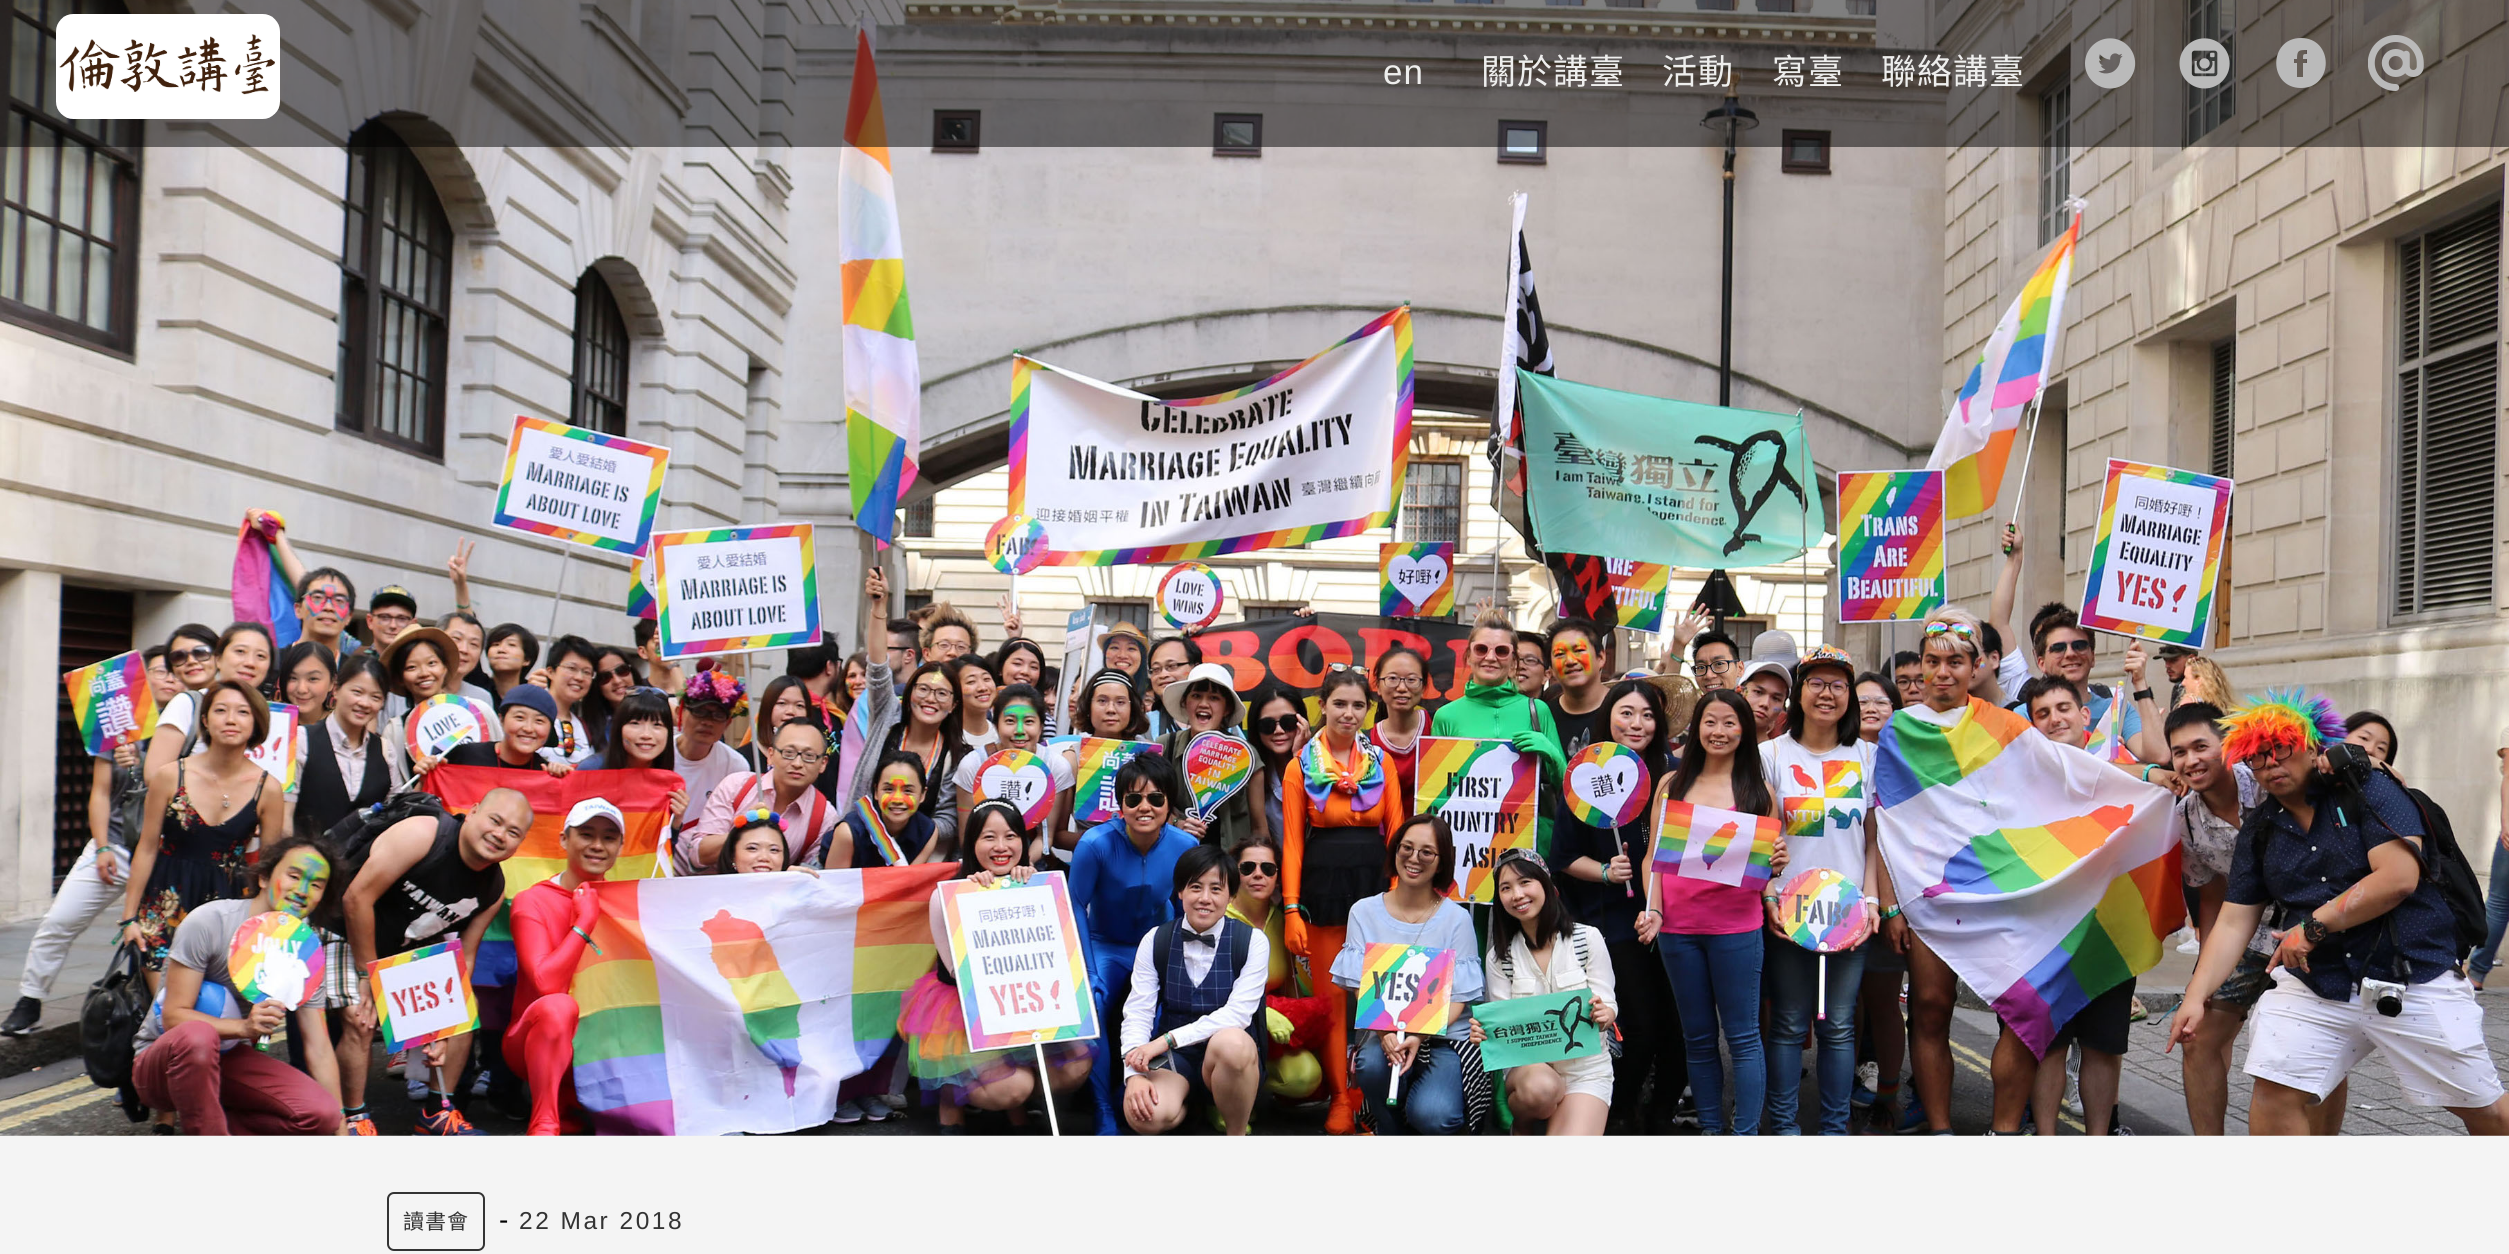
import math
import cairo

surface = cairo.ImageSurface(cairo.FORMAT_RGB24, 2509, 1254)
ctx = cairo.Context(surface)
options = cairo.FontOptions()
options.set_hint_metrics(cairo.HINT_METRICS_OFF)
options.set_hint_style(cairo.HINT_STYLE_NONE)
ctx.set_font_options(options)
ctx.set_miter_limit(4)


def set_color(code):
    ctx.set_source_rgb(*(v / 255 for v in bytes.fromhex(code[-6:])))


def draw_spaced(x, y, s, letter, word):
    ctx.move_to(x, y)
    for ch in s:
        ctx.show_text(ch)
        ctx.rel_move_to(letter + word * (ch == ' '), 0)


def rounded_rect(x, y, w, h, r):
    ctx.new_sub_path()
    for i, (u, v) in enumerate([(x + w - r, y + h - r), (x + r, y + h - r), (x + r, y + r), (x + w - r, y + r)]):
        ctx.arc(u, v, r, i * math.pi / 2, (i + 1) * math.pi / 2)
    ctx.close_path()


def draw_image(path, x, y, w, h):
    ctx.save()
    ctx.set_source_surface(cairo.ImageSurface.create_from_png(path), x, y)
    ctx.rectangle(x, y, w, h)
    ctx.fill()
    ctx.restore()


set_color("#f4f4f4")
ctx.paint()
draw_image("assets/img1.png", 0, 0, 2509, 1136)
ctx.set_source_rgba(0, 0, 0, 0.5)
ctx.rectangle(0, 0, 2509, 147)
ctx.fill()
draw_image("assets/img2.png", 56, 14, 224, 105)
ctx.select_font_face("Liberation Sans")
ctx.set_font_size(35)
set_color("#eeeeed")
draw_spaced(1383, 84, "en", 1, 0)
ctx.select_font_face("Noto Sans CJK TC")
draw_spaced(1481, 84, "關於講臺", 1, 0)
draw_spaced(1662, 84, "活動", 1, 0)
draw_spaced(1772, 84, "寫臺", 1, 0)
draw_spaced(1881, 84, "聯絡講臺", 1, 0)
draw_image("assets/img3.png", 2085, 38, 51, 51)
draw_image("assets/img4.png", 2179, 38, 51, 51)
set_color("#bababa")
ctx.set_fill_rule(cairo.FILL_RULE_EVEN_ODD)
ctx.new_path()
ctx.move_to(2297, 77)
ctx.line_to(2303, 77)
ctx.line_to(2303, 63)
ctx.line_to(2307, 63)
ctx.line_to(2307, 59)
ctx.line_to(2303, 59)
ctx.curve_to(2303, 54, 2303, 54, 2307, 54)
ctx.line_to(2307, 50)
ctx.curve_to(2299, 50, 2297, 50, 2297, 59)
ctx.line_to(2294, 59)
ctx.line_to(2294, 63)
ctx.line_to(2297, 63)
ctx.close_path()
ctx.move_to(2301, 88)
ctx.curve_to(2268, 88, 2268, 38, 2301, 38)
ctx.curve_to(2334, 38, 2334, 88, 2301, 88)
ctx.close_path()
ctx.fill()
draw_image("assets/img5.png", 2368, 35, 56, 56)
rounded_rect(388, 1193, 96, 57, 6)
set_color("#333333")
ctx.stroke()
ctx.set_font_size(21)
draw_spaced(403, 1229, "讀書會", 1, 0)
ctx.select_font_face("Liberation Sans")
ctx.set_font_size(28)
set_color("#000000")
draw_spaced(499, 1229, "-", 1, 0)
ctx.set_font_size(24.5)
set_color("#333333")
draw_spaced(519, 1229, "22 Mar 2018", 2.5, 0)
surface.write_to_png("output.png")
